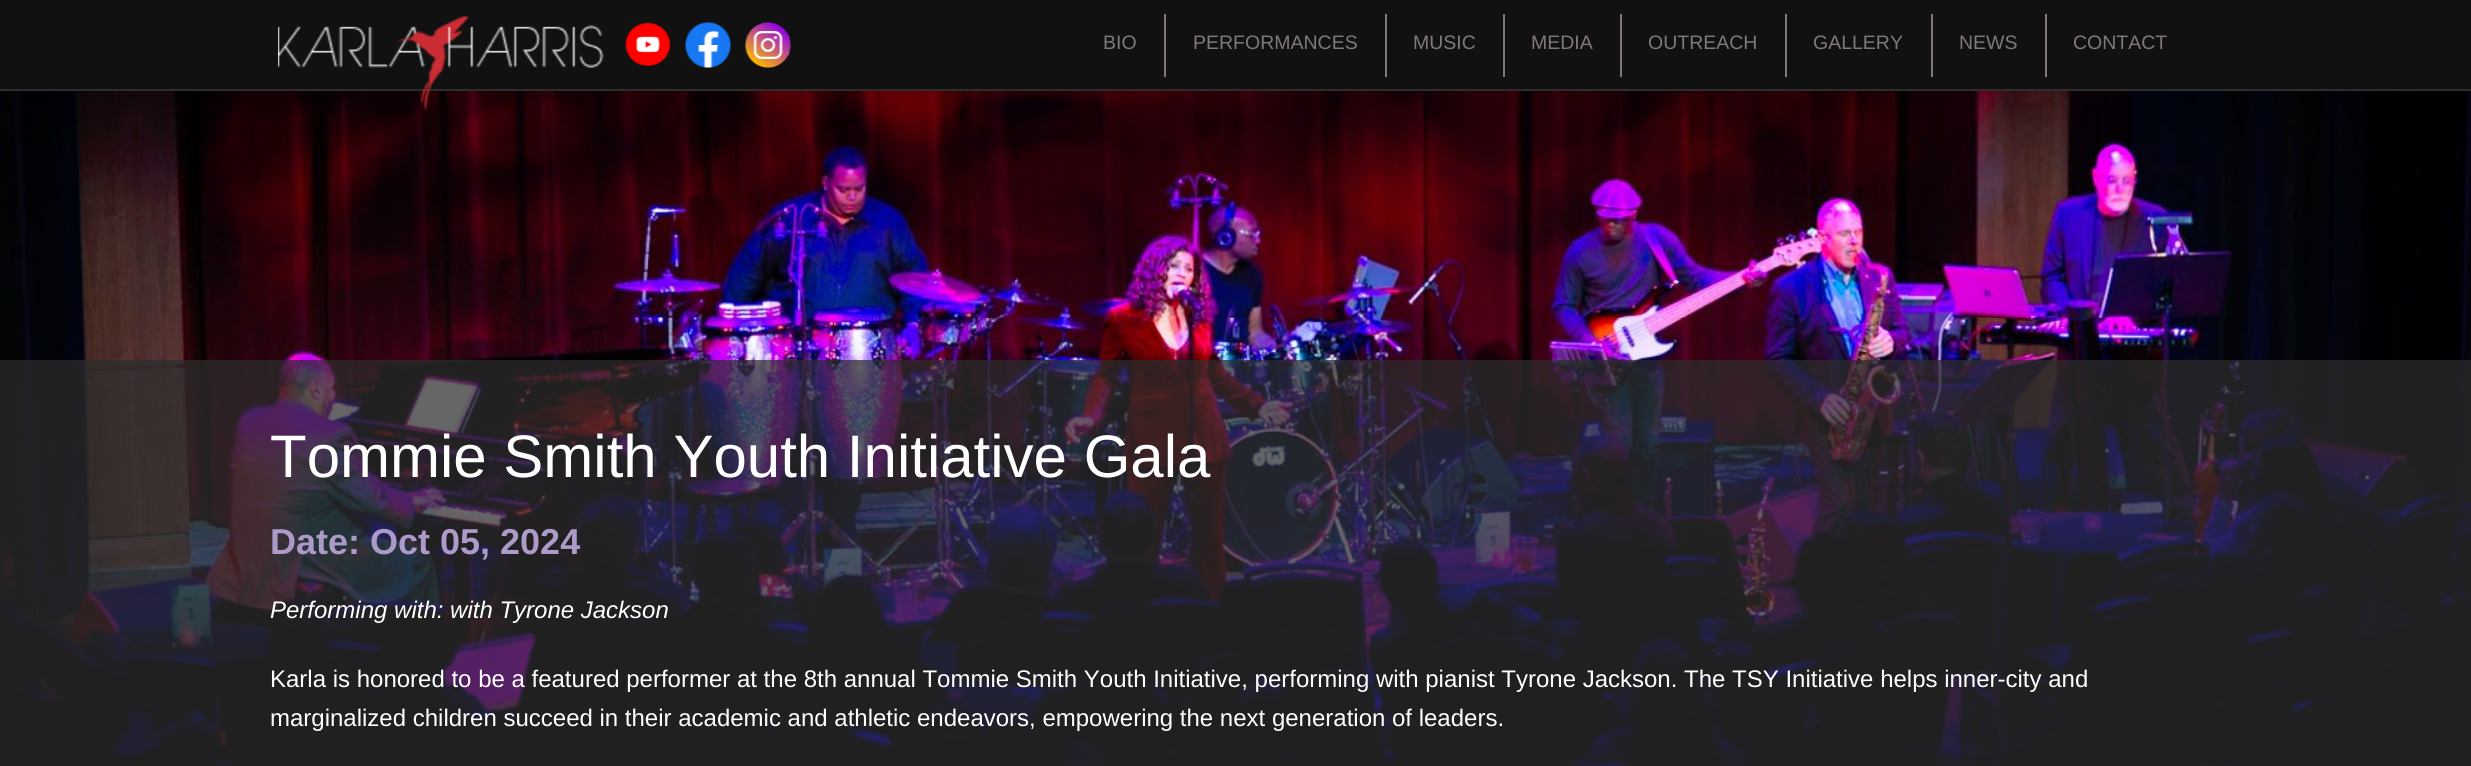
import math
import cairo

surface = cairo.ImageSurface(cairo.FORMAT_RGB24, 2471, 766)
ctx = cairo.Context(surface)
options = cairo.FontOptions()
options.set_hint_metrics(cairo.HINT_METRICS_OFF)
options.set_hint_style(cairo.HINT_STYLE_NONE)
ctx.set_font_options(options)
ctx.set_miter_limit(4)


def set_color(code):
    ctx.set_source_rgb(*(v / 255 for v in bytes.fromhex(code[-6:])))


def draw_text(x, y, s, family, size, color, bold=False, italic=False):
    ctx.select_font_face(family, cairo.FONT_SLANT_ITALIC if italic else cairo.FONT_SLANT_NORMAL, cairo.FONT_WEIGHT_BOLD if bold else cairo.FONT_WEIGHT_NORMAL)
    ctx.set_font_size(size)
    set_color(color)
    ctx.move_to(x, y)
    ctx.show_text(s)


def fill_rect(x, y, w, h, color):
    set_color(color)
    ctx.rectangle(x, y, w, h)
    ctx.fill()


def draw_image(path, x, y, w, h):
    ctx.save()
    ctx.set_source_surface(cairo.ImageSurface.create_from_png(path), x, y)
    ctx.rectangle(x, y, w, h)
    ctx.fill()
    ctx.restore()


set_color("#ffffff")
ctx.paint()
fill_rect(0, 0, 2471, 89, "#111111")
fill_rect(0, 89, 2471, 2, "#2d2d2d")
draw_image("assets/img5.png", 0, 91, 2471, 675)
draw_image("assets/img1.png", 278, 16, 326, 94)
draw_image("assets/img2.png", 625, 22, 46, 44)
draw_image("assets/img3.png", 685, 22, 46, 46)
draw_image("assets/img4.png", 745, 22, 46, 46)
draw_text(1103, 49, "BIO", "Liberation Sans", 19.5, "#817778")
fill_rect(1164, 14, 2, 63, "#817778")
draw_text(1193, 49, "PERFORMANCES", "Liberation Sans", 19.5, "#817778")
fill_rect(1385, 14, 2, 63, "#817778")
draw_text(1413, 49, "MUSIC", "Liberation Sans", 19.5, "#817778")
fill_rect(1503, 14, 2, 63, "#817778")
draw_text(1531, 49, "MEDIA", "Liberation Sans", 19.5, "#817778")
fill_rect(1620, 14, 2, 63, "#817778")
draw_text(1648, 49, "OUTREACH", "Liberation Sans", 19.5, "#817778")
fill_rect(1785, 14, 2, 63, "#817778")
draw_text(1813, 49, "GALLERY", "Liberation Sans", 19.5, "#817778")
fill_rect(1931, 14, 2, 63, "#817778")
draw_text(1959, 49, "NEWS", "Liberation Sans", 19.5, "#817778")
fill_rect(2045, 14, 2, 63, "#817778")
draw_text(2073, 49, "CONTACT", "Liberation Sans", 19.5, "#817778")
ctx.set_source_rgba(0.176, 0.176, 0.176, 0.72)
ctx.rectangle(0, 360, 2471, 406)
ctx.fill()
draw_text(270, 477, "Tommie Smith Youth Initiative Gala", "Liberation Sans", 60, "#ffffff")
draw_text(270, 554, "Date: Oct 05, 2024", "Liberation Sans", 36, "#ad9ac9", bold=True)
draw_text(270, 618, "Performing with: with Tyrone Jackson", "Liberation Sans", 24, "#ffffff", italic=True)
draw_text(270, 687, "Karla is honored to be a featured performer at the 8th annual Tommie Smith Youth Initiative, performing with pianist Tyrone Jackson. The TSY Initiative helps inner-city and", "Liberation Sans", 24, "#ffffff")
draw_text(270, 726, "marginalized children succeed in their academic and athletic endeavors, empowering the next generation of leaders.", "Liberation Sans", 24, "#ffffff")
surface.write_to_png("output.png")
